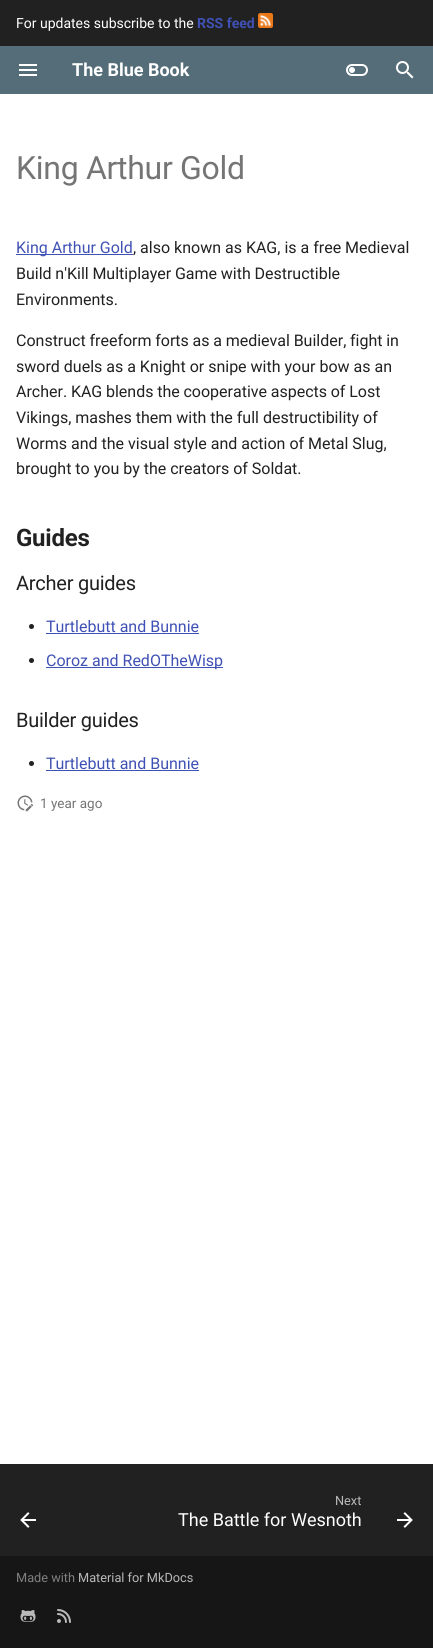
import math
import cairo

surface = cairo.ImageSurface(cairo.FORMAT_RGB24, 433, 1648)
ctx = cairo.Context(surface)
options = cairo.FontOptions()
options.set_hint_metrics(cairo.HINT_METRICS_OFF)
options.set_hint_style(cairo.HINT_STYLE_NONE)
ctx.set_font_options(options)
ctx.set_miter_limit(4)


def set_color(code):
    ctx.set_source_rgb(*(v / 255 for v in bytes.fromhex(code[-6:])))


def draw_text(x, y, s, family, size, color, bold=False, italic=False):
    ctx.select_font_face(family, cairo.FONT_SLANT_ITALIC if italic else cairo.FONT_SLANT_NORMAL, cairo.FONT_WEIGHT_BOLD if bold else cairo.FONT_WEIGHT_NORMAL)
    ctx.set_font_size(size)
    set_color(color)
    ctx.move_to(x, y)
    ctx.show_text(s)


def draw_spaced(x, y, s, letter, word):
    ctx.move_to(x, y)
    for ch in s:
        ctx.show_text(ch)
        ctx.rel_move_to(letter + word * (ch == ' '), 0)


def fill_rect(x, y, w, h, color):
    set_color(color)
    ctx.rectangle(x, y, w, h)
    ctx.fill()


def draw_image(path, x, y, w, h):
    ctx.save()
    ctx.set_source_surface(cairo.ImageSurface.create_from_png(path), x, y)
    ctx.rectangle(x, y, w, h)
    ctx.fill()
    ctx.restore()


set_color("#ffffff")
ctx.paint()
fill_rect(0, 0, 433, 46, "#212121")
draw_text(16, 28, "For updates subscribe to the", "Roboto", 14, "#ffffff")
draw_text(197, 28, "RSS feed", "Roboto", 14, "#4051b5", bold=True)
draw_image("assets/img1.png", 258, 13, 15, 15)
fill_rect(0, 46, 433, 48, "#546d78")
draw_image("assets/img2.png", 19, 64, 18, 12)
draw_text(72, 76, "The Blue Book", "Roboto", 18, "#ffffff", bold=True)
draw_image("assets/img3.png", 346, 64, 22, 12)
draw_image("assets/img4.png", 396, 61, 18, 18)
ctx.select_font_face("Roboto")
ctx.set_font_size(32)
set_color("#757575")
draw_spaced(16, 179, "King Arthur Gold", -0.3, 0)
fill_rect(16, 254, 117, 1, "#4051b5")
draw_text(16, 253, "King Arthur Gold", "Roboto", 16, "#4051b5")
draw_text(133, 253, ", also known as KAG, is a free Medieval", "Roboto", 16, "#212121")
draw_spaced(16, 279, "Build n'Kill Multiplayer Game with Destructible", 0, -0.25)
draw_text(16, 305, "Environments.", "Roboto", 16, "#212121")
draw_spaced(16, 346, "Construct freeform forts as a medieval Builder, fight in", 0, -0.25)
draw_text(16, 372, "sword duels as a Knight or snipe with your bow as an", "Roboto", 16, "#212121")
draw_spaced(16, 397, "Archer. KAG blends the cooperative aspects of Lost", 0, -0.25)
draw_text(16, 423, "Vikings, mashes them with the full destructibility of", "Roboto", 16, "#212121")
draw_text(16, 449, "Worms and the visual style and action of Metal Slug,", "Roboto", 16, "#212121")
draw_text(16, 474, "brought to you by the creators of Soldat.", "Roboto", 16, "#212121")
ctx.select_font_face("Roboto", cairo.FONT_SLANT_NORMAL, cairo.FONT_WEIGHT_BOLD)
ctx.set_font_size(24)
draw_spaced(16, 546, "Guides", -0.25, 0)
ctx.select_font_face("Roboto")
ctx.set_font_size(20)
draw_spaced(16, 590, "Archer guides", -0.25, 0)
ctx.new_path()
ctx.arc(31.5, 626.5, 2.5, 0, 2 * math.pi)
ctx.fill()
draw_text(46, 632, "Turtlebutt and Bunnie", "Roboto", 16, "#4051b5")
fill_rect(46, 633, 153, 1, "#4051b5")
set_color("#212121")
ctx.new_path()
ctx.arc(31.5, 660.5, 2.5, 0, 2 * math.pi)
ctx.fill()
fill_rect(46, 667, 177, 1, "#4051b5")
draw_text(46, 666, "Coroz and RedOTheWisp", "Roboto", 16, "#4051b5")
ctx.set_font_size(20)
set_color("#212121")
draw_spaced(16, 727, "Builder guides", -0.25, 0)
ctx.new_path()
ctx.arc(31.5, 763.5, 2.5, 0, 2 * math.pi)
ctx.fill()
draw_text(46, 769, "Turtlebutt and Bunnie", "Roboto", 16, "#4051b5")
fill_rect(46, 770, 153, 1, "#4051b5")
draw_image("assets/img5.png", 17, 795, 17, 17)
draw_text(40, 808, "1 year ago", "Roboto", 13.5, "#757575")
fill_rect(0, 1464, 433, 92, "#212121")
draw_image("assets/img6.png", 20, 1512, 16, 16)
draw_text(335, 1505, "Next", "Roboto", 12.75, "#b9b9b9")
draw_text(178, 1526, "The Battle for Wesnoth", "Roboto", 18, "#ffffff")
draw_image("assets/img7.png", 397, 1512, 16, 16)
fill_rect(0, 1556, 433, 92, "#161616")
draw_text(16, 1582, "Made with", "Roboto", 12.75, "#7f7f7f")
draw_text(78, 1582, "Material for MkDocs", "Roboto", 12.75, "#b9b9b9")
draw_image("assets/img8.png", 20, 1610, 16, 12)
draw_image("assets/img9.png", 57, 1609, 14, 14)
surface.write_to_png("output.png")
